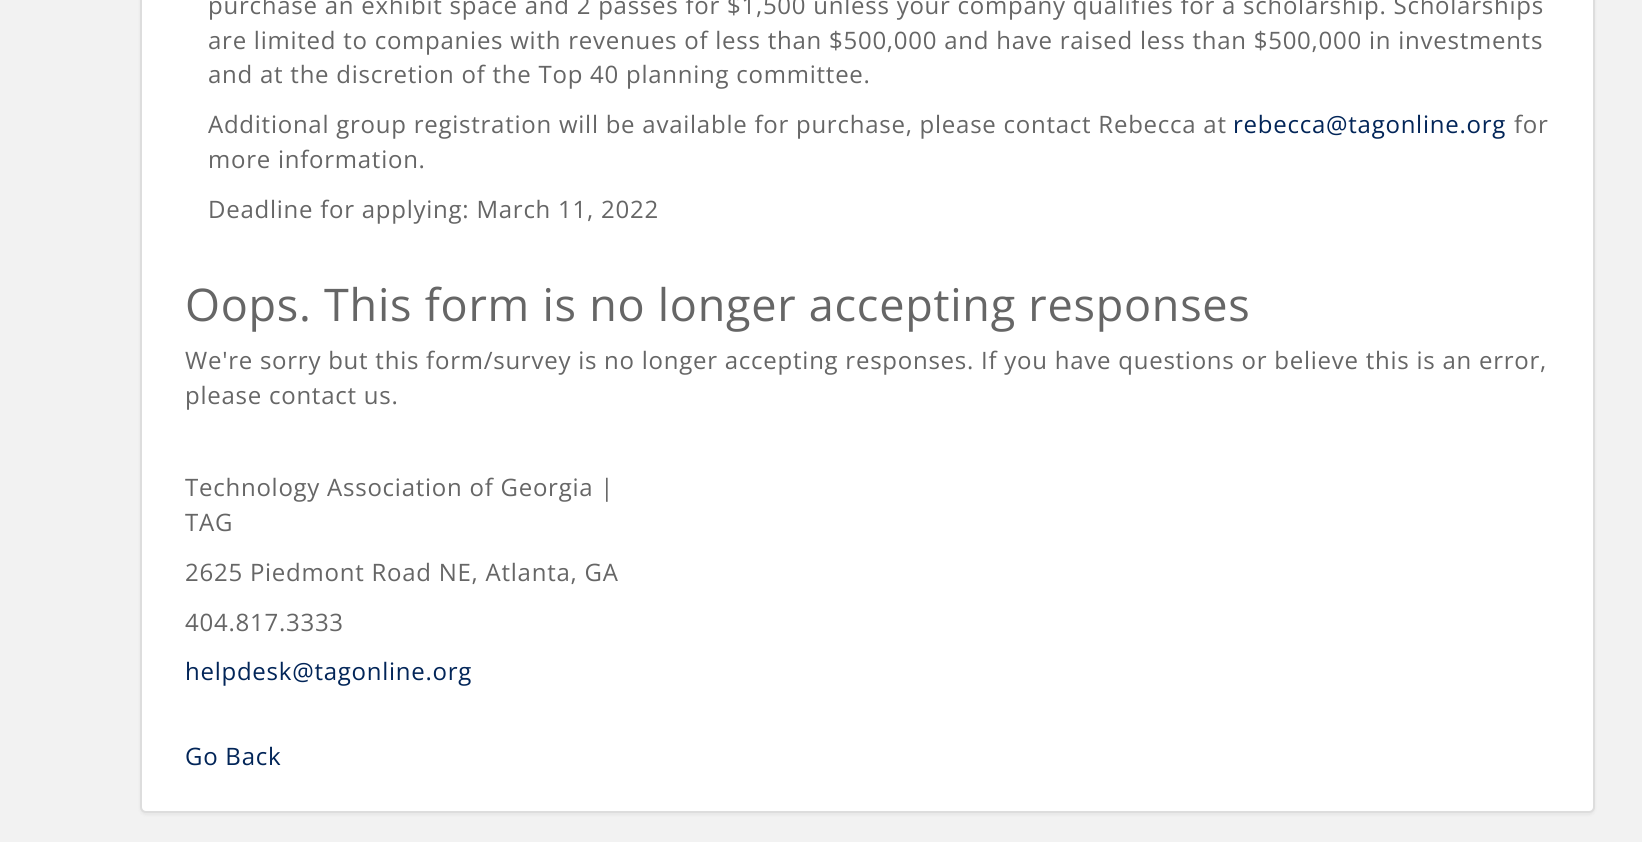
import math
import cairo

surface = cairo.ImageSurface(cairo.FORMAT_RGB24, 1642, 842)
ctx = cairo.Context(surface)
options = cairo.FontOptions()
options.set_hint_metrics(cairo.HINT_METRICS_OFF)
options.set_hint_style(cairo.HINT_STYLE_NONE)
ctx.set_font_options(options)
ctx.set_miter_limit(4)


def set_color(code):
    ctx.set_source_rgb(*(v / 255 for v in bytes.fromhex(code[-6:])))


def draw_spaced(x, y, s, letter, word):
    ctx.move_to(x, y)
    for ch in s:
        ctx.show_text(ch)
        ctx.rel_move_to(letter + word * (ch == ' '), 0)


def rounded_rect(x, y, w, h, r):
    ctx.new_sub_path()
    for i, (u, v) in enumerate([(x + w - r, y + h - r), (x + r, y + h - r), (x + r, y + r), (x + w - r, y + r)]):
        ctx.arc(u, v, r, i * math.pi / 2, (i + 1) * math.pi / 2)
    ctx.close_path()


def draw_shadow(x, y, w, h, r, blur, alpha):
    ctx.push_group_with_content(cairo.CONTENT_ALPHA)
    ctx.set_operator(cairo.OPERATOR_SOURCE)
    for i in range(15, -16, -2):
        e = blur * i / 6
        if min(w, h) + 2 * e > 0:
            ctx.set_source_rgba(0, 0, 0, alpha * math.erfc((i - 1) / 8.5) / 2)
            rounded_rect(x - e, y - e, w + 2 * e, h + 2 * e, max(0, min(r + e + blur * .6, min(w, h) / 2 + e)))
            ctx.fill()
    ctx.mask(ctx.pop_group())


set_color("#f2f2f2")
ctx.paint()
set_color("#000000")
draw_shadow(140, -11, 1455, 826, 6, 1.5, 0.05)
set_color("#ffffff")
rounded_rect(141, -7, 1453, 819, 5)
ctx.fill_preserve()
set_color("#dddddd")
ctx.stroke()
ctx.select_font_face("Open Sans")
ctx.set_font_size(24)
set_color("#666666")
draw_spaced(208, 14, "purchase an exhibit space and 2 passes for $1,500 unless your company qualifies for a scholarship. Scholarships", 0.75, 0)
draw_spaced(208, 49, "are limited to companies with revenues of less than $500,000 and have raised less than $500,000 in investments", 0.75, 0)
draw_spaced(208, 83, "and at the discretion of the Top 40 planning committee.", 0.75, 0)
draw_spaced(208, 133, "Additional group registration will be available for purchase, please contact Rebecca at", 0.75, 0)
set_color("#022558")
draw_spaced(1233, 133, "rebecca@tagonline.org", 0.75, 0)
set_color("#666666")
draw_spaced(1514, 133, "for", 0.75, 0)
draw_spaced(208, 168, "more information.", 0.75, 0)
draw_spaced(208, 218, "Deadline for applying: March 11, 2022", 0.75, 0)
ctx.set_font_size(45)
draw_spaced(185, 321, "Oops. This form is no longer accepting responses", 0.75, 0)
ctx.set_font_size(24)
draw_spaced(185, 369, "We're sorry but this form/survey is no longer accepting responses. If you have questions or believe this is an error,", 0.75, 0)
draw_spaced(185, 404, "please contact us.", 0.75, 0)
draw_spaced(185, 496, "Technology Association of Georgia |", 0.75, 0)
draw_spaced(185, 531, "TAG", 0.75, 0)
draw_spaced(185, 581, "2625 Piedmont Road NE, Atlanta, GA", 0.75, 0)
draw_spaced(185, 631, "404.817.3333", 0.75, 0)
set_color("#022558")
draw_spaced(185, 680, "helpdesk@tagonline.org", 0.75, 0)
draw_spaced(185, 765, "Go Back", 0.75, 0)
surface.write_to_png("output.png")
